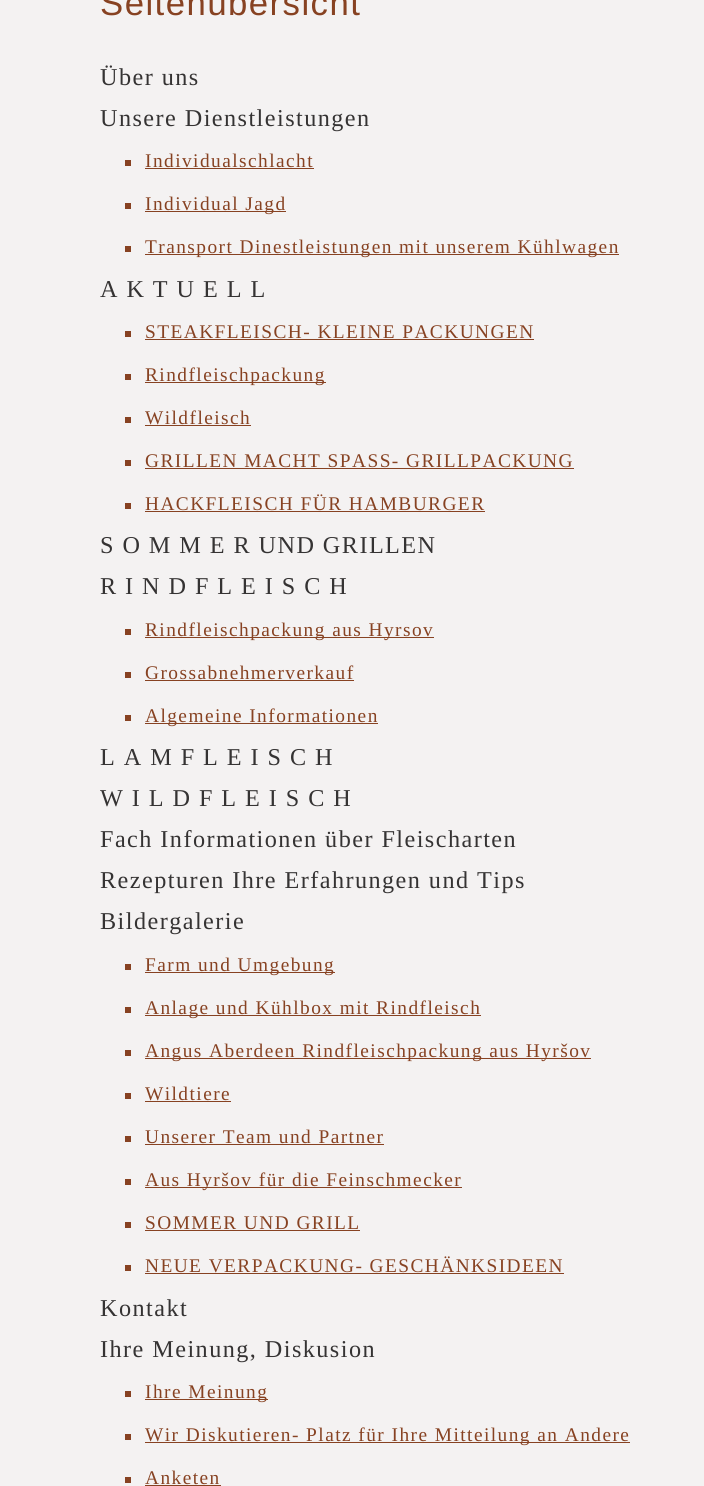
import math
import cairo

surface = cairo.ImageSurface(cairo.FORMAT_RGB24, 704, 1486)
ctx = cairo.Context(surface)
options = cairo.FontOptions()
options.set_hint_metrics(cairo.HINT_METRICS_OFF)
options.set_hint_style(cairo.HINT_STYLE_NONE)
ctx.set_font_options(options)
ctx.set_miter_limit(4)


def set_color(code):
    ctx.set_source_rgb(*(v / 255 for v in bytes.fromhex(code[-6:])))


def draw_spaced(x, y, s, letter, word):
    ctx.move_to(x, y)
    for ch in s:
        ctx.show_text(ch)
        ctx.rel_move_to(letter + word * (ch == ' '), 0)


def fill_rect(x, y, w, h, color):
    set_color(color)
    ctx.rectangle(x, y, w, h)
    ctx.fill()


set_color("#f4f2f2")
ctx.paint()
ctx.select_font_face("Liberation Sans")
ctx.set_font_size(34.75)
set_color("#874222")
draw_spaced(100, 15, "Seitenübersicht", 1.45, 0)
ctx.select_font_face("Liberation Serif")
ctx.set_font_size(24.2)
set_color("#353333")
draw_spaced(100, 85, "Über uns", 1.45, 0)
draw_spaced(100, 126, "Unsere Dienstleistungen", 1.45, 0)
ctx.set_font_size(19.35)
set_color("#874222")
draw_spaced(145, 167, "Individualschlacht", 1.45, 0)
fill_rect(125, 160, 6, 6, "#874222")
fill_rect(145, 168, 169, 1, "#874222")
fill_rect(145, 211, 141, 1, "#874222")
draw_spaced(145, 210, "Individual Jagd", 1.45, 0)
fill_rect(125, 203, 6, 6, "#874222")
fill_rect(145, 254, 474, 1, "#874222")
draw_spaced(145, 253, "Transport Dinestleistungen mit unserem Kühlwagen", 1.45, 0)
fill_rect(125, 246, 6, 6, "#874222")
ctx.set_font_size(24.2)
set_color("#353333")
draw_spaced(100, 297, "A K T U E L L", 1.45, 0)
ctx.set_font_size(19.35)
set_color("#874222")
draw_spaced(145, 338, "STEAKFLEISCH- KLEINE PACKUNGEN", 1.45, 0)
fill_rect(125, 331, 6, 6, "#874222")
fill_rect(145, 339, 389, 1, "#874222")
fill_rect(145, 382, 181, 1, "#874222")
draw_spaced(145, 381, "Rindfleischpackung", 1.45, 0)
fill_rect(125, 374, 6, 6, "#874222")
draw_spaced(145, 424, "Wildfleisch", 1.45, 0)
fill_rect(125, 417, 6, 6, "#874222")
fill_rect(145, 425, 106, 1, "#874222")
draw_spaced(145, 467, "GRILLEN MACHT SPASS- GRILLPACKUNG", 1.45, 0)
fill_rect(125, 460, 6, 6, "#874222")
fill_rect(145, 468, 429, 1, "#874222")
draw_spaced(145, 510, "HACKFLEISCH FÜR HAMBURGER", 1.45, 0)
fill_rect(125, 503, 6, 6, "#874222")
fill_rect(145, 511, 340, 1, "#874222")
ctx.set_font_size(24.2)
set_color("#353333")
draw_spaced(100, 553, "S O M M E R UND GRILLEN", 1.45, 0)
draw_spaced(100, 594, "R I N D F L E I S C H", 1.45, 0)
fill_rect(145, 637, 289, 1, "#874222")
ctx.set_font_size(19.35)
draw_spaced(145, 636, "Rindfleischpackung aus Hyrsov", 1.45, 0)
fill_rect(125, 629, 6, 6, "#874222")
draw_spaced(145, 679, "Grossabnehmerverkauf", 1.45, 0)
fill_rect(125, 672, 6, 6, "#874222")
fill_rect(145, 680, 209, 1, "#874222")
fill_rect(145, 723, 233, 1, "#874222")
draw_spaced(145, 722, "Algemeine Informationen", 1.45, 0)
fill_rect(125, 715, 6, 6, "#874222")
ctx.set_font_size(24.2)
set_color("#353333")
draw_spaced(100, 765, "L A M F L E I S C H", 1.45, 0)
draw_spaced(100, 806, "W I L D F L E I S C H", 1.45, 0)
draw_spaced(100, 847, "Fach Informationen über Fleischarten", 1.45, 0)
draw_spaced(100, 888, "Rezepturen Ihre Erfahrungen und Tips", 1.45, 0)
draw_spaced(100, 929, "Bildergalerie", 1.45, 0)
fill_rect(145, 972, 190, 1, "#874222")
ctx.set_font_size(19.35)
draw_spaced(145, 971, "Farm und Umgebung", 1.45, 0)
fill_rect(125, 964, 6, 6, "#874222")
fill_rect(145, 1015, 336, 1, "#874222")
draw_spaced(145, 1014, "Anlage und Kühlbox mit Rindfleisch", 1.45, 0)
fill_rect(125, 1007, 6, 6, "#874222")
fill_rect(145, 1058, 446, 1, "#874222")
draw_spaced(145, 1057, "Angus Aberdeen Rindfleischpackung aus Hyršov", 1.45, 0)
fill_rect(125, 1050, 6, 6, "#874222")
draw_spaced(145, 1100, "Wildtiere", 1.45, 0)
fill_rect(125, 1093, 6, 6, "#874222")
fill_rect(145, 1101, 86, 1, "#874222")
draw_spaced(145, 1143, "Unserer Team und Partner", 1.45, 0)
fill_rect(125, 1136, 6, 6, "#874222")
fill_rect(145, 1144, 239, 1, "#874222")
fill_rect(145, 1187, 317, 1, "#874222")
draw_spaced(145, 1186, "Aus Hyršov für die Feinschmecker", 1.45, 0)
fill_rect(125, 1179, 6, 6, "#874222")
draw_spaced(145, 1229, "SOMMER UND GRILL", 1.45, 0)
fill_rect(125, 1222, 6, 6, "#874222")
fill_rect(145, 1230, 215, 1, "#874222")
draw_spaced(145, 1272, "NEUE VERPACKUNG- GESCHÄNKSIDEEN", 1.45, 0)
fill_rect(125, 1265, 6, 6, "#874222")
fill_rect(145, 1273, 419, 1, "#874222")
ctx.set_font_size(24.2)
set_color("#353333")
draw_spaced(100, 1316, "Kontakt", 1.45, 0)
draw_spaced(100, 1357, "Ihre Meinung, Diskusion", 1.45, 0)
fill_rect(145, 1399, 123, 1, "#874222")
ctx.set_font_size(19.35)
draw_spaced(145, 1398, "Ihre Meinung", 1.45, 0)
fill_rect(125, 1391, 6, 6, "#874222")
fill_rect(145, 1442, 485, 1, "#874222")
draw_spaced(145, 1441, "Wir Diskutieren- Platz für Ihre Mitteilung an Andere", 1.45, 0)
fill_rect(125, 1434, 6, 6, "#874222")
draw_spaced(145, 1484, "Anketen", 1.45, 0)
fill_rect(125, 1477, 6, 6, "#874222")
fill_rect(145, 1485, 76, 1, "#874222")
surface.write_to_png("output.png")
